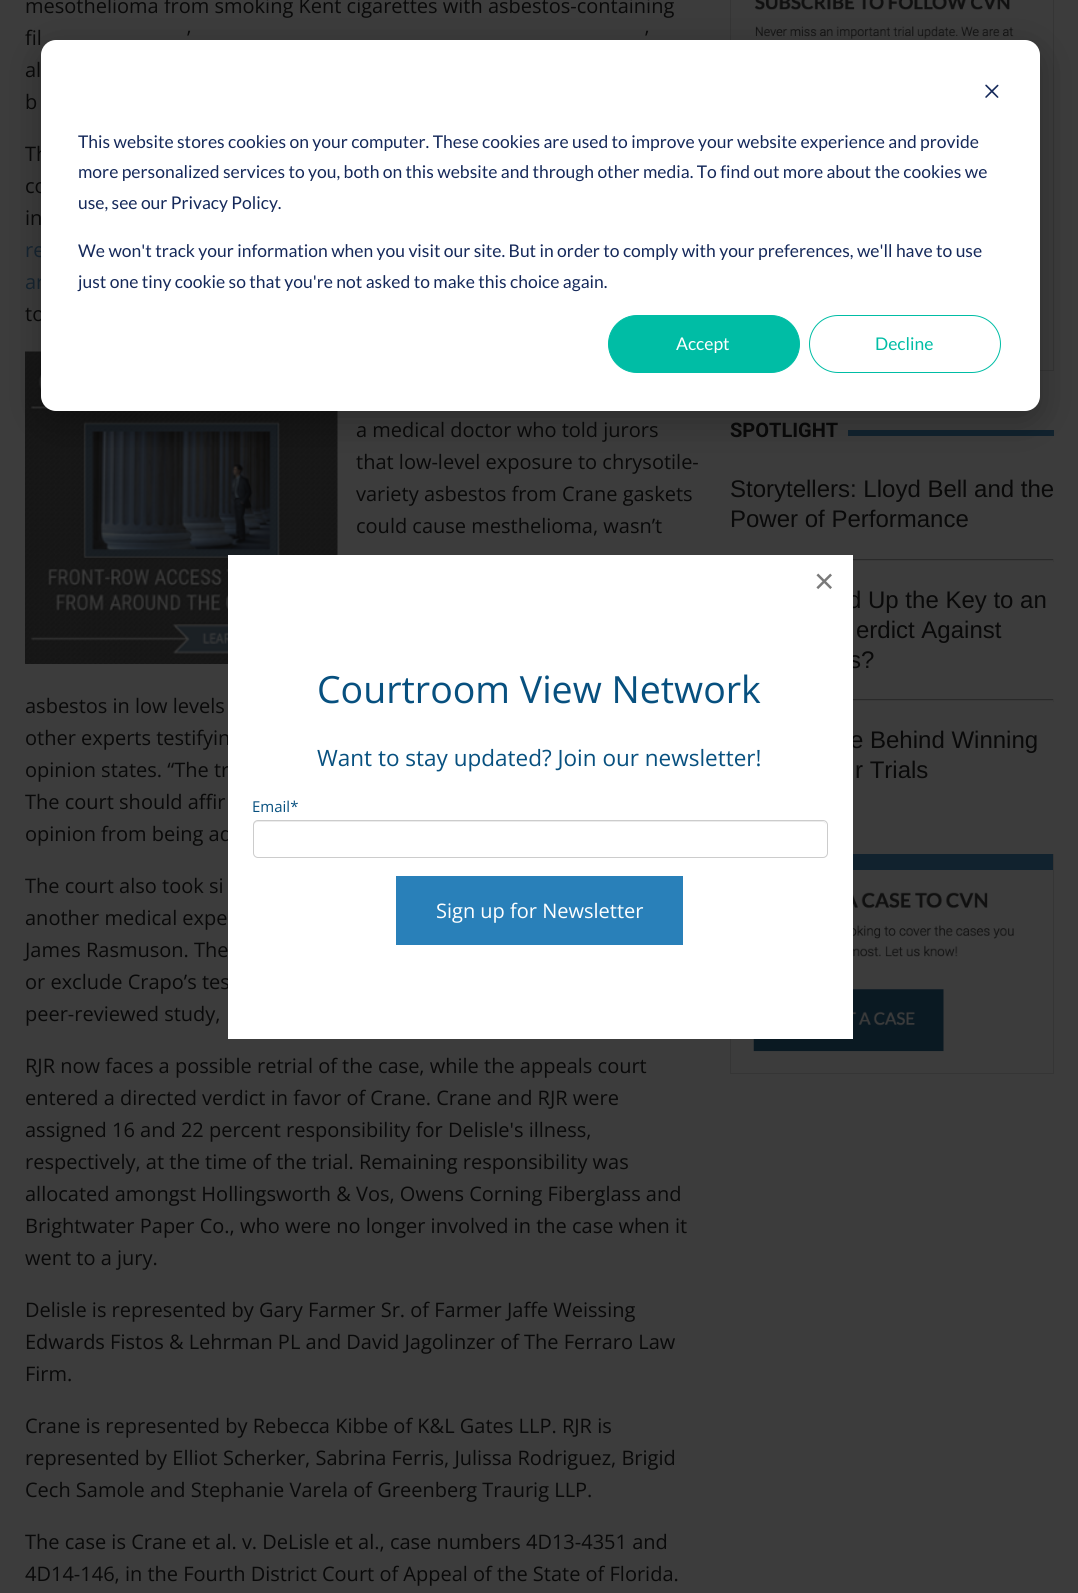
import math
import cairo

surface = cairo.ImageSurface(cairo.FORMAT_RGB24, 1078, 1593)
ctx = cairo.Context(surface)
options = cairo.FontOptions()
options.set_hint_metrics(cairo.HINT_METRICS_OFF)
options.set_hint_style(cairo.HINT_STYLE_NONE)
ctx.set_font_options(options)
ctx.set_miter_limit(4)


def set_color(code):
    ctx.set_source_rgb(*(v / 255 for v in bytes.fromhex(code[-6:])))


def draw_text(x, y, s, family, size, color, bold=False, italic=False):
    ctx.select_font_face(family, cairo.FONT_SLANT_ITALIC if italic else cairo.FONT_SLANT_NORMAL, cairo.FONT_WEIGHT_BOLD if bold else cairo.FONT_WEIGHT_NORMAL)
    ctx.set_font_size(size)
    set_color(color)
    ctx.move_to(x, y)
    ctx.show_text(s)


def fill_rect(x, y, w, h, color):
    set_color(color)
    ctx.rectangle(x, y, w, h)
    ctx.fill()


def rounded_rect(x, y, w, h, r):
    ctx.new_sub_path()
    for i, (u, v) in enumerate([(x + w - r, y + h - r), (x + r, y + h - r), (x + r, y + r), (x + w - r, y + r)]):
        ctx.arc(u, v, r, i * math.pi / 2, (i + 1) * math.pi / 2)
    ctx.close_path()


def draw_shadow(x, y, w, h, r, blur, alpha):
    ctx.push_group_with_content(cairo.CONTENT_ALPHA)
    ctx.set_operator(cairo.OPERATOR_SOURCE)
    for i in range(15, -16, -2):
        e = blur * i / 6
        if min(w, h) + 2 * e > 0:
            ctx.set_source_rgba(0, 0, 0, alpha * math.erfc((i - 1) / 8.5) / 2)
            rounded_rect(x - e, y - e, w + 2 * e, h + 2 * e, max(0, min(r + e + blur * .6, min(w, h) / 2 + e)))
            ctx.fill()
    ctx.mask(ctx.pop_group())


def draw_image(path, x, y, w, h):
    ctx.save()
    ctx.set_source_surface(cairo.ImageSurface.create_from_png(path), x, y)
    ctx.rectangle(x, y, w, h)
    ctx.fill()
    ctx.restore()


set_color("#3c3c3c")
ctx.paint()
draw_text(25, 13, "mesothelioma from smoking Kent cigarettes with asbestos-containing", "Open Sans", 20, "#090909")
draw_text(25, 45, "fil", "Open Sans", 20, "#090909")
draw_text(187, 45, "’", "Open Sans", 20, "#090909")
draw_text(645, 45, "’", "Open Sans", 20, "#090909")
draw_text(25, 77, "al", "Open Sans", 20, "#090909")
draw_text(25, 109, "b", "Open Sans", 20, "#090909")
draw_text(25, 161, "Th", "Open Sans", 20, "#090909")
draw_text(25, 193, "co", "Open Sans", 20, "#090909")
draw_text(25, 225, "in", "Open Sans", 20, "#090909")
draw_text(25, 257, "re", "Open Sans", 20, "#162531")
draw_text(25, 289, "ar", "Open Sans", 20, "#162531")
draw_text(25, 321, "to", "Open Sans", 20, "#090909")
draw_image("assets/img1.png", 25, 351, 313, 313)
draw_text(356, 437, "a medical doctor who told jurors", "Open Sans", 20, "#090909")
draw_text(356, 469, "that low-level exposure to chrysotile-", "Open Sans", 20, "#090909")
draw_text(356, 501, "variety asbestos from Crane gaskets", "Open Sans", 20, "#090909")
draw_text(356, 533, "could cause mesthelioma, wasn’t", "Open Sans", 20, "#090909")
draw_text(25, 713, "asbestos in low levels", "Open Sans", 20, "#090909")
draw_text(25, 745, "other experts testifyin", "Open Sans", 20, "#090909")
draw_text(25, 777, "opinion states. “The tr", "Open Sans", 20, "#090909")
draw_text(25, 809, "The court should affir", "Open Sans", 20, "#090909")
draw_text(25, 841, "opinion from being ad", "Open Sans", 20, "#090909")
draw_text(25, 893, "The court also took si", "Open Sans", 20, "#090909")
draw_text(25, 925, "another medical expe", "Open Sans", 20, "#090909")
draw_text(25, 957, "James Rasmuson. The", "Open Sans", 20, "#090909")
draw_text(25, 989, "or exclude Crapo’s tes", "Open Sans", 20, "#090909")
draw_text(25, 1021, "peer-reviewed study,", "Open Sans", 20, "#090909")
draw_text(25, 1073, "RJR now faces a possible retrial of the case, while the appeals court", "Open Sans", 20, "#090909")
draw_text(25, 1105, "entered a directed verdict in favor of Crane. Crane and RJR were", "Open Sans", 20, "#090909")
draw_text(25, 1137, "assigned 16 and 22 percent responsibility for Delisle's illness,", "Open Sans", 20, "#090909")
draw_text(25, 1169, "respectively, at the time of the trial. Remaining responsibility was", "Open Sans", 20, "#090909")
draw_text(25, 1201, "allocated amongst Hollingsworth & Vos, Owens Corning Fiberglass and", "Open Sans", 20, "#090909")
draw_text(25, 1233, "Brightwater Paper Co., who were no longer involved in the case when it", "Open Sans", 20, "#090909")
draw_text(25, 1265, "went to a jury.", "Open Sans", 20, "#090909")
draw_text(25, 1317, "Delisle is represented by Gary Farmer Sr. of Farmer Jaffe Weissing", "Open Sans", 20, "#090909")
draw_text(25, 1349, "Edwards Fistos & Lehrman PL and David Jagolinzer of The Ferraro Law", "Open Sans", 20, "#090909")
draw_text(25, 1381, "Firm.", "Open Sans", 20, "#090909")
draw_text(25, 1433, "Crane is represented by Rebecca Kibbe of K&L Gates LLP. RJR is", "Open Sans", 20, "#090909")
draw_text(25, 1465, "represented by Elliot Scherker, Sabrina Ferris, Julissa Rodriguez, Brigid", "Open Sans", 20, "#090909")
draw_text(25, 1497, "Cech Samole and Stephanie Varela of Greenberg Traurig LLP.", "Open Sans", 20, "#090909")
draw_text(25, 1549, "The case is Crane et al. v. DeLisle et al., case numbers 4D13-4351 and", "Open Sans", 20, "#090909")
draw_text(25, 1581, "4D14-146, in the Fourth District Court of Appeal of the State of Florida.", "Open Sans", 20, "#090909")
fill_rect(1053, 0, 1, 371, "#353535")
fill_rect(1040, 370, 14, 1, "#353535")
fill_rect(730, 0, 1, 40, "#353535")
draw_image("assets/img2.png", 754, 0, 260, 40)
draw_text(730, 437, "SPOTLIGHT", "Roboto", 20, "#090909", bold=True)
fill_rect(848, 430, 206, 6, "#11222e")
draw_text(730, 497, "Storytellers: Lloyd Bell and the", "Liberation Sans", 24, "#090909")
draw_text(730, 527, "Power of Performance", "Liberation Sans", 24, "#090909")
fill_rect(853, 559, 201, 1, "#292929")
fill_rect(1053, 559, 1, 3, "#383838")
fill_rect(853, 560, 201, 1, "#383838")
draw_text(848, 608, "d Up the Key to an", "Liberation Sans", 24, "#090909")
draw_text(856, 638, "erdict Against", "Liberation Sans", 24, "#090909")
draw_text(849, 668, "s?", "Liberation Sans", 24, "#090909")
fill_rect(853, 699, 201, 1, "#292929")
fill_rect(1053, 699, 1, 3, "#383838")
fill_rect(853, 700, 201, 1, "#383838")
draw_text(850, 748, "e Behind Winning", "Liberation Sans", 24, "#090909")
draw_text(855, 778, "r Trials", "Liberation Sans", 24, "#090909")
fill_rect(1053, 854, 1, 220, "#353535")
fill_rect(730, 1073, 324, 1, "#353535")
fill_rect(730, 1039, 1, 35, "#353535")
fill_rect(853, 854, 200, 16, "#11222e")
draw_image("assets/img3.png", 853, 892, 161, 65)
draw_image("assets/img4.png", 753, 989, 191, 63)
set_color("#000000")
draw_shadow(41, 50, 999, 371, 15, 17.5, 0.28)
set_color("#ffffff")
rounded_rect(41, 40, 999, 371, 15)
ctx.fill()
draw_image("assets/img5.png", 985, 84, 14, 14)
draw_text(78, 148, "This website stores cookies on your computer. These cookies are used to improve your website experience and provide", "Lato", 17.5, "#15295a")
draw_text(78, 178, "more personalized services to you, both on this website and through other media. To find out more about the cookies we", "Lato", 17.5, "#15295a")
draw_text(78, 209, "use, see our Privacy Policy.", "Lato", 17.5, "#15295a")
draw_text(78, 257, "We won't track your information when you visit our site. But in order to comply with your preferences, we'll have to use", "Lato", 17.5, "#15295a")
draw_text(78, 288, "just one tiny cookie so that you're not asked to make this choice again.", "Lato", 17.5, "#15295a")
set_color("#00bda5")
rounded_rect(608.5, 315.5, 191, 57, 28.5)
ctx.fill_preserve()
ctx.set_line_width(1)
ctx.stroke()
draw_text(676, 350, "Accept", "Lato", 17.5, "#ffffff")
rounded_rect(809.5, 315.5, 191, 57, 28.5)
set_color("#00bda5")
ctx.stroke()
draw_text(875, 350, "Decline", "Lato", 17.5, "#00bda5")
fill_rect(228, 555, 625, 484, "#ffffff")
draw_text(814, 593, "×", "Liberation Sans", 35, "#7a7a7a")
draw_text(317, 703, "Courtroom View Network", "Open Sans", 37.5, "#07507f")
draw_text(317, 766, "Want to stay updated? Join our newsletter!", "Open Sans", 22.5, "#07507f")
draw_text(252, 812, "Email*", "Open Sans", 15, "#07507f")
set_color("#ececec")
ctx.new_path()
ctx.move_to(258, 822)
ctx.line_to(822, 822)
ctx.curve_to(825, 822, 826, 824, 826, 826)
ctx.curve_to(826, 823, 825, 821, 822, 821)
ctx.line_to(258, 821)
ctx.curve_to(255, 821, 254, 823, 254, 826)
ctx.curve_to(254, 824, 255, 822, 258, 822)
ctx.close_path()
ctx.fill()
rounded_rect(253.5, 820.5, 574, 37, 4.5)
set_color("#cccccc")
ctx.stroke()
fill_rect(396, 876, 287, 69, "#2980b9")
draw_text(436, 918, "Sign up for Newsletter", "Open Sans", 20, "#ffffff")
surface.write_to_png("output.png")
